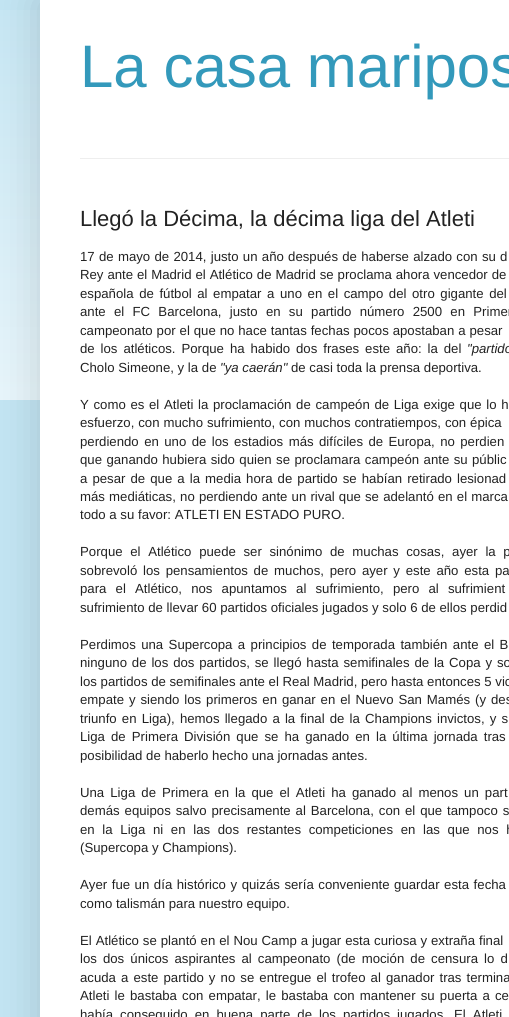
import math
import cairo

surface = cairo.ImageSurface(cairo.FORMAT_RGB24, 509, 1017)
ctx = cairo.Context(surface)
options = cairo.FontOptions()
options.set_hint_metrics(cairo.HINT_METRICS_OFF)
options.set_hint_style(cairo.HINT_STYLE_NONE)
ctx.set_font_options(options)
ctx.set_miter_limit(4)


def set_color(code):
    ctx.set_source_rgb(*(v / 255 for v in bytes.fromhex(code[-6:])))


def draw_text(x, y, s, family, size, color, bold=False, italic=False):
    ctx.select_font_face(family, cairo.FONT_SLANT_ITALIC if italic else cairo.FONT_SLANT_NORMAL, cairo.FONT_WEIGHT_BOLD if bold else cairo.FONT_WEIGHT_NORMAL)
    ctx.set_font_size(size)
    set_color(color)
    ctx.move_to(x, y)
    ctx.show_text(s)


def draw_spaced(x, y, s, letter, word):
    ctx.move_to(x, y)
    for ch in s:
        ctx.show_text(ch)
        ctx.rel_move_to(letter + word * (ch == ' '), 0)


def fill_rect(x, y, w, h, color):
    set_color(color)
    ctx.rectangle(x, y, w, h)
    ctx.fill()


def rounded_rect(x, y, w, h, r):
    ctx.new_sub_path()
    for i, (u, v) in enumerate([(x + w - r, y + h - r), (x + r, y + h - r), (x + r, y + r), (x + w - r, y + r)]):
        ctx.arc(u, v, r, i * math.pi / 2, (i + 1) * math.pi / 2)
    ctx.close_path()


def draw_shadow(x, y, w, h, r, blur, alpha):
    ctx.push_group_with_content(cairo.CONTENT_ALPHA)
    ctx.set_operator(cairo.OPERATOR_SOURCE)
    for i in range(15, -16, -2):
        e = blur * i / 6
        if min(w, h) + 2 * e > 0:
            ctx.set_source_rgba(0, 0, 0, alpha * math.erfc((i - 1) / 8.5) / 2)
            rounded_rect(x - e, y - e, w + 2 * e, h + 2 * e, max(0, min(r + e + blur * .6, min(w, h) / 2 + e)))
            ctx.fill()
    ctx.mask(ctx.pop_group())


def draw_image(path, x, y, w, h):
    ctx.save()
    ctx.set_source_surface(cairo.ImageSurface.create_from_png(path), x, y)
    ctx.rectangle(x, y, w, h)
    ctx.fill()
    ctx.restore()


set_color("#c2e4f2")
ctx.paint()
draw_image("assets/img1.png", 0, 10, 40, 390)
set_color("#000000")
draw_shadow(40, 0, 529, 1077, 0, 20, 0.15)
fill_rect(40, 0, 469, 1017, "#ffffff")
draw_text(80, 87, "La casa maripos", "Liberation Sans", 60, "#3399bb")
fill_rect(80, 158, 429, 1, "#eeeeee")
draw_text(80, 226, "Llegó la Décima, la décima liga del Atleti", "Liberation Sans", 22, "#222222")
ctx.set_font_size(13.2)
draw_spaced(80, 261, "17 de mayo de 2014, justo un año después de haberse alzado con su d", 0, 0.6)
draw_spaced(80, 279, "Rey ante el Madrid el Atlético de Madrid se proclama ahora vencedor de", 0, 0.25)
draw_spaced(80, 298, "española de fútbol al empatar a uno en el campo del otro gigante del", 0, 1.9)
draw_spaced(80, 316, "ante el FC Barcelona, justo en su partido número 2500 en Primer", 0, 4.6)
draw_spaced(80, 335, "campeonato por el que no hace tantas fechas pocos apostaban a pesar", 0, 0.25)
draw_spaced(80, 353, "de los atléticos. Porque ha habido dos frases este año: la del", 0, 2.25)
ctx.select_font_face("Liberation Sans", cairo.FONT_SLANT_ITALIC)
draw_spaced(467, 353, "\"partido", 0, 2.25)
draw_text(80, 372, "Cholo Simeone, y la de", "Liberation Sans", 13.2, "#222222")
draw_text(220, 372, "\"ya caerán\"", "Liberation Sans", 13.2, "#222222", italic=True)
draw_text(291, 372, "de casi toda la prensa deportiva.", "Liberation Sans", 13.2, "#222222")
draw_spaced(80, 409, "Y como es el Atleti la proclamación de campeón de Liga exige que lo h", 0, 1)
draw_spaced(80, 427, "esfuerzo, con mucho sufrimiento, con muchos contratiempos, con épica", 0, 0.25)
draw_spaced(80, 446, "perdiendo en uno de los estadios más difíciles de Europa, no perdien", 0, 1.75)
draw_spaced(80, 464, "que ganando hubiera sido quien se proclamara campeón ante su públic", 0, 0.75)
draw_spaced(80, 483, "a pesar de que a la media hora de partido se habían retirado lesionad", 0, 1.4)
draw_spaced(80, 501, "más mediáticas, no perdiendo ante un rival que se adelantó en el marca", 0, 0.5)
draw_text(80, 519, "todo a su favor: ATLETI EN ESTADO PURO.", "Liberation Sans", 13.2, "#222222")
draw_spaced(80, 556, "Porque el Atlético puede ser sinónimo de muchas cosas, ayer la p", 0, 4)
draw_spaced(80, 575, "sobrevoló los pensamientos de muchos, pero ayer y este año esta pa", 0, 2.1)
draw_spaced(80, 593, "para el Atlético, nos apuntamos al sufrimiento, pero al sufrimient", 0, 5.5)
draw_text(80, 612, "sufrimiento de llevar 60 partidos oficiales jugados y solo 6 de ellos perdid", "Liberation Sans", 13.2, "#222222")
draw_spaced(80, 649, "Perdimos una Supercopa a principios de temporada también ante el B", 0, 1.75)
draw_spaced(80, 667, "ninguno de los dos partidos, se llegó hasta semifinales de la Copa y so", 0, 1.2)
draw_text(80, 686, "los partidos de semifinales ante el Real Madrid, pero hasta entonces 5 vic", "Liberation Sans", 13.2, "#222222")
draw_spaced(80, 704, "empate y siendo los primeros en ganar en el Nuevo San Mamés (y des", 0, 1.25)
draw_spaced(80, 723, "triunfo en Liga), hemos llegado a la final de la Champions invictos, y s", 0, 1.5)
draw_spaced(80, 741, "Liga de Primera División que se ha ganado en la última jornada tras", 0, 2.4)
draw_text(80, 760, "posibilidad de haberlo hecho una jornadas antes.", "Liberation Sans", 13.2, "#222222")
draw_spaced(80, 797, "Una Liga de Primera en la que el Atleti ha ganado al menos un part", 0, 2.4)
draw_spaced(80, 815, "demás equipos salvo precisamente al Barcelona, con el que tampoco s", 0, 1.25)
draw_spaced(80, 834, "en la Liga ni en las dos restantes competiciones en las que nos h", 0, 4)
draw_text(80, 852, "(Supercopa y Champions).", "Liberation Sans", 13.2, "#222222")
draw_spaced(80, 889, "Ayer fue un día histórico y quizás sería conveniente guardar esta fecha", 0, 0.9)
draw_text(80, 908, "como talismán para nuestro equipo.", "Liberation Sans", 13.2, "#222222")
draw_spaced(80, 945, "El Atlético se plantó en el Nou Camp a jugar esta curiosa y extraña final", 0, 0.25)
draw_spaced(80, 963, "los dos únicos aspirantes al campeonato (de moción de censura lo d", 0, 2.4)
draw_spaced(80, 982, "acuda a este partido y no se entregue el trofeo al ganador tras termina", 0, 1.4)
draw_spaced(80, 1000, "Atleti le bastaba con empatar, le bastaba con mantener su puerta a ce", 0, 1.5)
draw_spaced(80, 1019, "había conseguido en buena parte de los partidos jugados. El Atleti", 0, 3.4)
surface.write_to_png("output.png")
